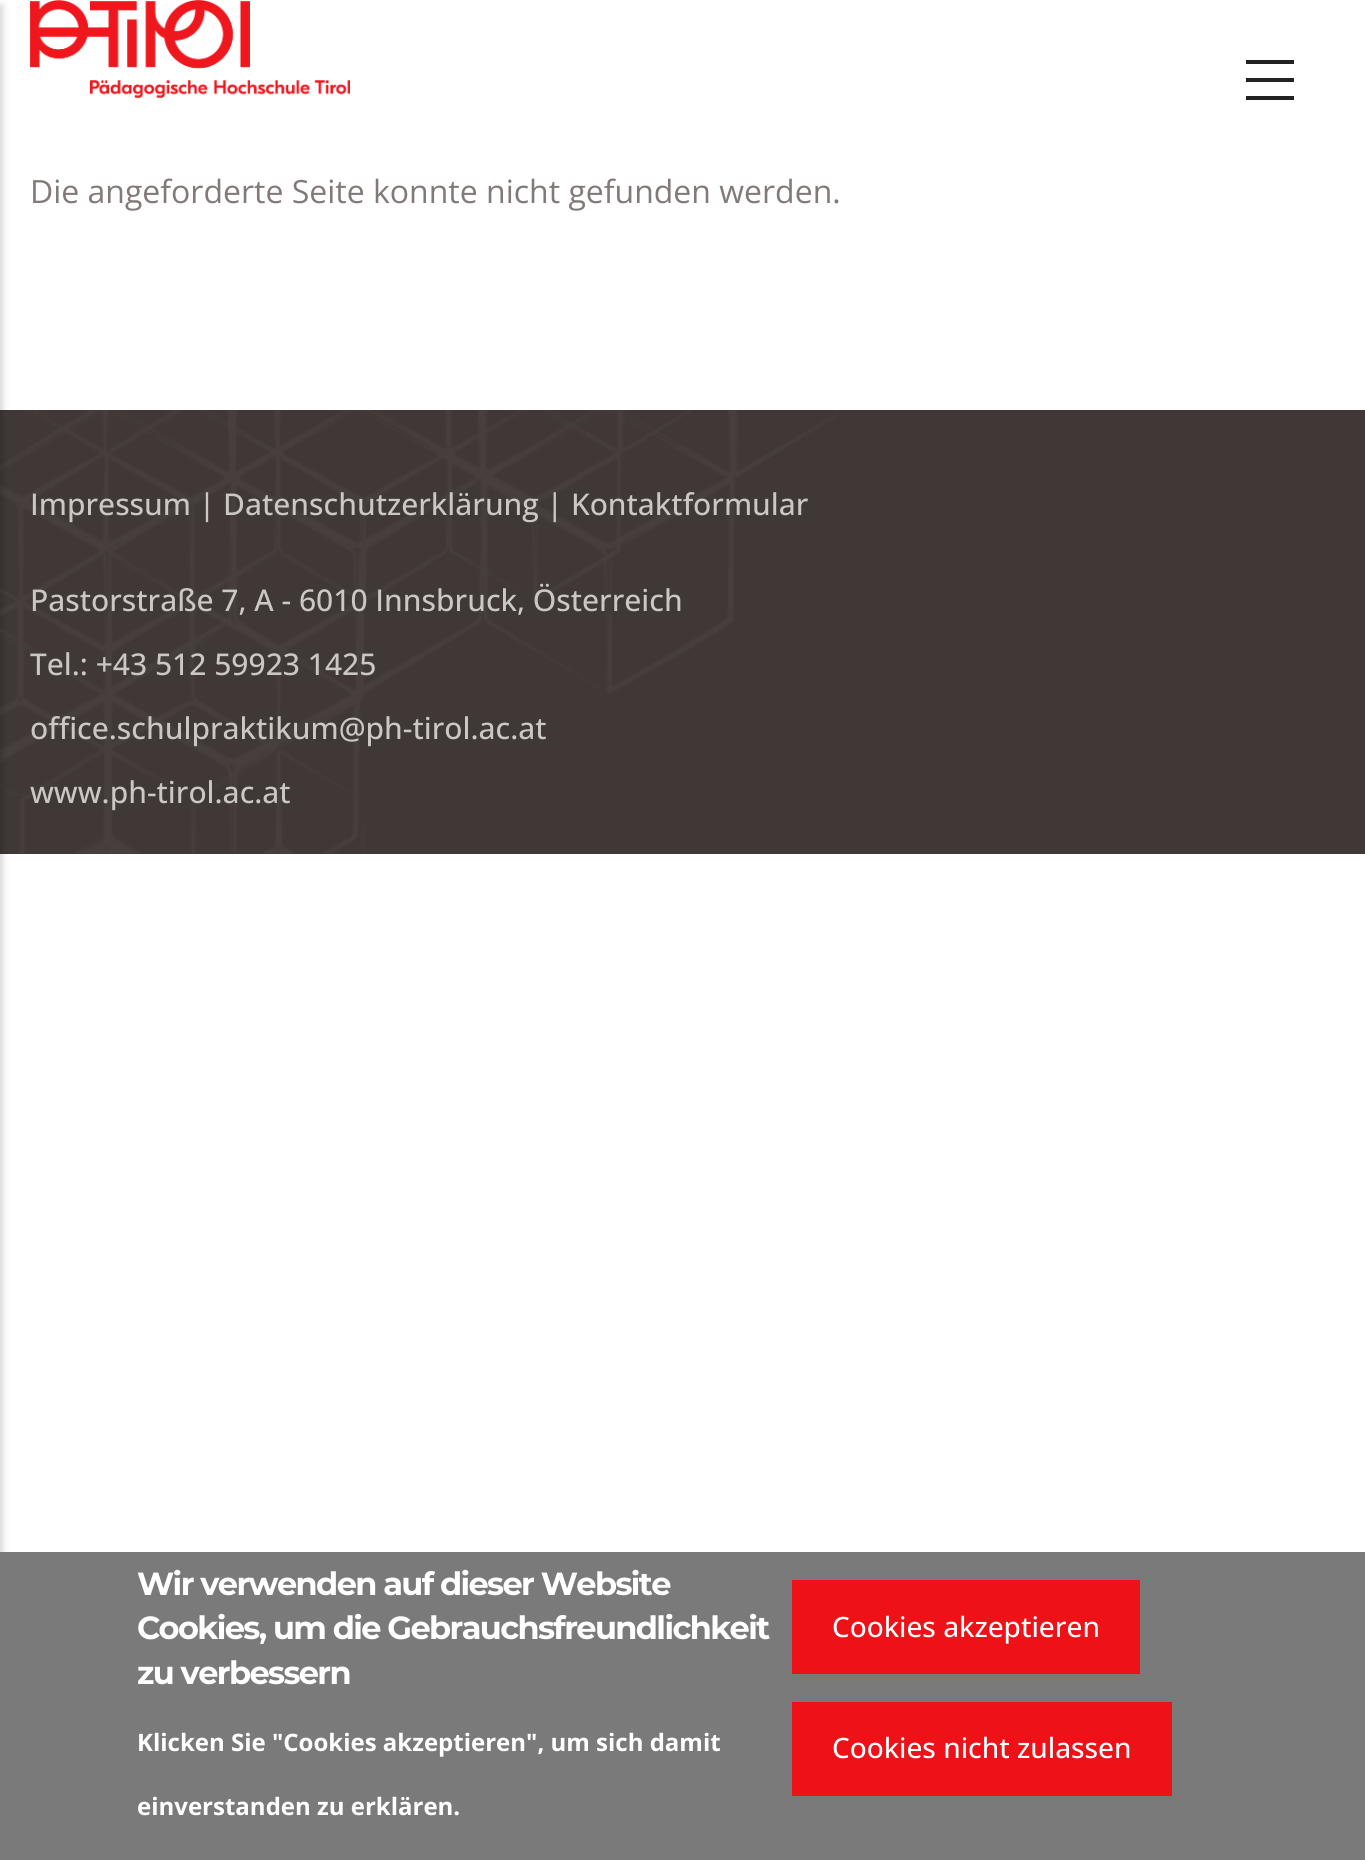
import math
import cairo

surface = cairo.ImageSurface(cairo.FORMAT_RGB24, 1365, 1860)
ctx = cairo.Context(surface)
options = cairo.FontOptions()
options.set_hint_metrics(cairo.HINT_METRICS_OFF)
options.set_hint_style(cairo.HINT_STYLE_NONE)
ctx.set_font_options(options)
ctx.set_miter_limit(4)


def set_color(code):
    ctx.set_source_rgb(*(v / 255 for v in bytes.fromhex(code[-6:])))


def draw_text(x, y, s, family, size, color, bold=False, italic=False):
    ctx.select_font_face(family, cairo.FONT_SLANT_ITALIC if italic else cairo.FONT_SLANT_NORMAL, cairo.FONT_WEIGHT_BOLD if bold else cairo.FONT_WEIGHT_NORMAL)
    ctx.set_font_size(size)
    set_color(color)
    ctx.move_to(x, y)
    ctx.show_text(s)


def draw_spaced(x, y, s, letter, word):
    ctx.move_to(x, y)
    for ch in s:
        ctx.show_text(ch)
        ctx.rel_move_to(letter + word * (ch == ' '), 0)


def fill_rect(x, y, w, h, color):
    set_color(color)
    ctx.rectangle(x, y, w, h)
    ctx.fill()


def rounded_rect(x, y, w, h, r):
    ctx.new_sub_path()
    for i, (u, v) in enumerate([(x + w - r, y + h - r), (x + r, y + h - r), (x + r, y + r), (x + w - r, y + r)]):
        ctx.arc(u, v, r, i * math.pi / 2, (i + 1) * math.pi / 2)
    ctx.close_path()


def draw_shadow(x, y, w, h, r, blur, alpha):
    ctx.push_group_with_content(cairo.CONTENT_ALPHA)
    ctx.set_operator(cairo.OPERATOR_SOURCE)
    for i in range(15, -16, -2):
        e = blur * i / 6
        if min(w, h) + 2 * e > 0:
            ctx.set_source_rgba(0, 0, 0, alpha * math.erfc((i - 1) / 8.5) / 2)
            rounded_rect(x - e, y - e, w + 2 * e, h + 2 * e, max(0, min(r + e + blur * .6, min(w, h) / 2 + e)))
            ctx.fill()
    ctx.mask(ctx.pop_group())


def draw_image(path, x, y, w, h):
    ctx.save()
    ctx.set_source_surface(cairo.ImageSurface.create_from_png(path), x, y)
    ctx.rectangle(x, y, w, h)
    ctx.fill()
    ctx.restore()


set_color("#ffffff")
ctx.paint()
fill_rect(0, 410, 1365, 444, "#3f3836")
draw_image("assets/img2.png", 0, 410, 838, 444)
set_color("#000000")
draw_shadow(-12, 6, 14, 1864, 0, 4, 0.2)
fill_rect(1246, 60, 48, 4, "#222222")
fill_rect(1246, 78, 48, 4, "#222222")
fill_rect(1246, 96, 48, 4, "#222222")
draw_image("assets/img1.png", 30, 0, 320, 98)
draw_text(30, 203, "Die angeforderte Seite konnte nicht gefunden werden.", "Open Sans", 32, "#817a78")
draw_text(30, 515, "Impressum | Datenschutzerklärung | Kontaktformular", "Open Sans Medium", 30, "#cbc7c5")
draw_text(30, 611, "Pastorstraße 7, A - 6010 Innsbruck, Österreich", "Open Sans Medium", 30, "#cbc7c5")
draw_text(30, 675, "Tel.: +43 512 59923 1425", "Open Sans Medium", 30, "#cbc7c5")
draw_text(30, 739, "office.schulpraktikum@ph-tirol.ac.at", "Open Sans Medium", 30, "#cbc7c5")
draw_text(30, 803, "www.ph-tirol.ac.at", "Open Sans Medium", 30, "#cbc7c5")
fill_rect(0, 1552, 1365, 308, "#7a7a7a")
ctx.select_font_face("Montserrat", cairo.FONT_SLANT_NORMAL, cairo.FONT_WEIGHT_BOLD)
ctx.set_font_size(32)
set_color("#ffffff")
draw_spaced(137, 1595, "Wir verwenden auf dieser Website", -1.6, 0)
draw_spaced(137, 1639, "Cookies, um die Gebrauchsfreundlichkeit", -1.6, 0)
draw_spaced(137, 1684, "zu verbessern", -1.6, 0)
draw_text(137, 1751, "Klicken Sie \"Cookies akzeptieren\", um sich damit", "Open Sans", 24, "#ffffff", bold=True)
draw_text(137, 1815, "einverstanden zu erklären.", "Open Sans", 24, "#ffffff", bold=True)
fill_rect(792, 1580, 348, 94, "#ee1117")
draw_text(832, 1637, "Cookies akzeptieren", "Open Sans Medium", 28, "#ffffff")
fill_rect(792, 1702, 380, 94, "#ee1117")
draw_text(832, 1758, "Cookies nicht zulassen", "Open Sans Medium", 28, "#ffffff")
surface.write_to_png("output.png")
